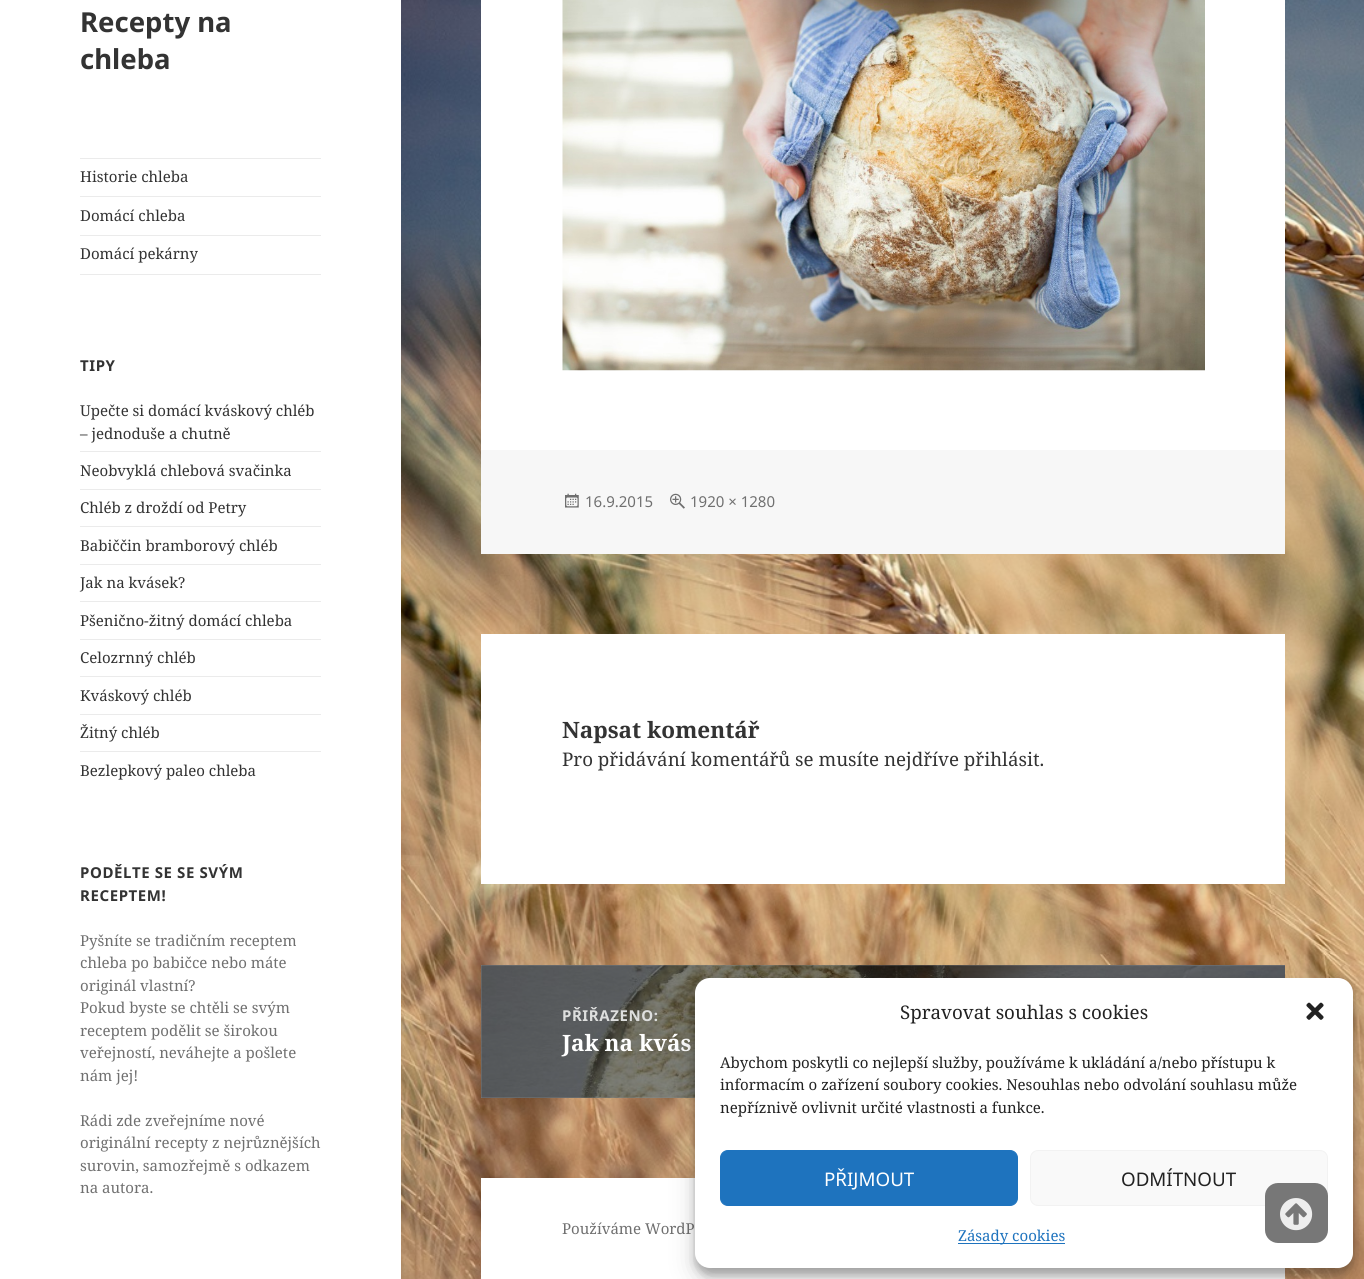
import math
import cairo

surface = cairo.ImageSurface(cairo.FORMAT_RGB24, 1364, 1279)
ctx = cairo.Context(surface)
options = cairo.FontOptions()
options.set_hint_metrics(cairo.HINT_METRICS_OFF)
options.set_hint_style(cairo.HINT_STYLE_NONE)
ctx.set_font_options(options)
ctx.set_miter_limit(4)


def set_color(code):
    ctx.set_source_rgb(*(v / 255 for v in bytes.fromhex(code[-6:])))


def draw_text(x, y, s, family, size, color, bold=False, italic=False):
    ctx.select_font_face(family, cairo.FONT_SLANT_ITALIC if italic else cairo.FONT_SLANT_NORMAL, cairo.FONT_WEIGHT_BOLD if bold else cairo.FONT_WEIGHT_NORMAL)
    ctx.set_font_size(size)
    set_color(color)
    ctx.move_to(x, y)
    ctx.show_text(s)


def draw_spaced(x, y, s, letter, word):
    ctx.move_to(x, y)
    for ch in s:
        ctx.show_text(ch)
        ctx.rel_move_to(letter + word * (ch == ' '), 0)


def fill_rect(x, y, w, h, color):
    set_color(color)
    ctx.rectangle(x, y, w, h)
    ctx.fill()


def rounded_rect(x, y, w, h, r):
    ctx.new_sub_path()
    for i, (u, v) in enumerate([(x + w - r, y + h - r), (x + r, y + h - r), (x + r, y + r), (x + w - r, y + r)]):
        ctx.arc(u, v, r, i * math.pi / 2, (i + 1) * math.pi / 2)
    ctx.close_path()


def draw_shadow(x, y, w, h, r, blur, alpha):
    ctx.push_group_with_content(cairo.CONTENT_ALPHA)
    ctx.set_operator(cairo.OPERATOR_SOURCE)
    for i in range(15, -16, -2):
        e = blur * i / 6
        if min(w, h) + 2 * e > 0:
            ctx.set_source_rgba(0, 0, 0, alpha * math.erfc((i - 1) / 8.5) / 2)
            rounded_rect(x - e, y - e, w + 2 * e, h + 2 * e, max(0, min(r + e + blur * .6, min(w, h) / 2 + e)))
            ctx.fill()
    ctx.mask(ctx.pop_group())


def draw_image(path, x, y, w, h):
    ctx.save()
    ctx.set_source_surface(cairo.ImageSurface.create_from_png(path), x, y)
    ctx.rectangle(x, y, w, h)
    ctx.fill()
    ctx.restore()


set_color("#ffffff")
ctx.paint()
draw_image("assets/img1.png", 401, 0, 963, 1279)
draw_text(80, 32, "Recepty na", "Noto Sans", 27.5, "#333333", bold=True)
draw_text(80, 69, "chleba", "Noto Sans", 27.5, "#333333", bold=True)
fill_rect(80, 158, 241, 1, "#ebebeb")
fill_rect(80, 274, 241, 1, "#ebebeb")
draw_text(80, 182, "Historie chleba", "Noto Serif", 15, "#333333")
fill_rect(80, 196, 241, 1, "#ebebeb")
draw_text(80, 221, "Domácí chleba", "Noto Serif", 15, "#333333")
fill_rect(80, 235, 241, 1, "#ebebeb")
draw_text(80, 259, "Domácí pekárny", "Noto Serif", 15, "#333333")
ctx.select_font_face("Noto Sans", cairo.FONT_SLANT_NORMAL, cairo.FONT_WEIGHT_BOLD)
draw_spaced(80, 371, "TIPY", 0.6, 0)
draw_text(80, 416, "Upečte si domácí kváskový chléb", "Noto Serif", 15, "#333333")
draw_text(80, 439, "– jednoduše a chutně", "Noto Serif", 15, "#333333")
fill_rect(80, 451, 241, 1, "#ebebeb")
draw_text(80, 476, "Neobvyklá chlebová svačinka", "Noto Serif", 15, "#333333")
fill_rect(80, 489, 241, 1, "#ebebeb")
draw_text(80, 513, "Chléb z droždí od Petry", "Noto Serif", 15, "#333333")
fill_rect(80, 526, 241, 1, "#ebebeb")
draw_text(80, 551, "Babiččin bramborový chléb", "Noto Serif", 15, "#333333")
fill_rect(80, 564, 241, 1, "#ebebeb")
draw_text(80, 588, "Jak na kvásek?", "Noto Serif", 15, "#333333")
fill_rect(80, 601, 241, 1, "#ebebeb")
draw_text(80, 626, "Pšenično-žitný domácí chleba", "Noto Serif", 15, "#333333")
fill_rect(80, 639, 241, 1, "#ebebeb")
draw_text(80, 663, "Celozrnný chléb", "Noto Serif", 15, "#333333")
fill_rect(80, 676, 241, 1, "#ebebeb")
draw_text(80, 701, "Kváskový chléb", "Noto Serif", 15, "#333333")
fill_rect(80, 714, 241, 1, "#ebebeb")
draw_text(80, 738, "Žitný chléb", "Noto Serif", 15, "#333333")
fill_rect(80, 751, 241, 1, "#ebebeb")
draw_text(80, 776, "Bezlepkový paleo chleba", "Noto Serif", 15, "#333333")
ctx.select_font_face("Noto Sans", cairo.FONT_SLANT_NORMAL, cairo.FONT_WEIGHT_BOLD)
draw_spaced(80, 878, "PODĚLTE SE SE SVÝM", 0.6, 0)
draw_spaced(80, 901, "RECEPTEM!", 0.6, 0)
draw_text(80, 946, "Pyšníte se tradičním receptem", "Noto Serif", 15, "#707070")
draw_text(80, 968, "chleba po babičce nebo máte", "Noto Serif", 15, "#707070")
draw_text(80, 991, "originál vlastní?", "Noto Serif", 15, "#707070")
draw_text(80, 1013, "Pokud byste se chtěli se svým", "Noto Serif", 15, "#707070")
draw_text(80, 1036, "receptem podělit se širokou", "Noto Serif", 15, "#707070")
draw_text(80, 1058, "veřejností, neváhejte a pošlete", "Noto Serif", 15, "#707070")
draw_text(80, 1081, "nám jej!", "Noto Serif", 15, "#707070")
draw_text(80, 1126, "Rádi zde zveřejníme nové", "Noto Serif", 15, "#707070")
draw_text(80, 1148, "originální recepty z nejrůznějších", "Noto Serif", 15, "#707070")
draw_text(80, 1171, "surovin, samozřejmě s odkazem", "Noto Serif", 15, "#707070")
draw_text(80, 1193, "na autora.", "Noto Serif", 15, "#707070")
fill_rect(481, 0, 804, 450, "#ffffff")
draw_image("assets/img2.png", 562, 0, 643, 371)
fill_rect(481, 450, 804, 104, "#f7f7f7")
draw_image("assets/img3.png", 565, 493, 14, 15)
draw_text(585, 507, "16.9.2015", "Noto Sans", 15, "#707070")
draw_image("assets/img4.png", 670, 493, 15, 16)
draw_text(690, 507, "1920 × 1280", "Noto Sans", 15, "#707070")
fill_rect(481, 634, 804, 250, "#ffffff")
draw_text(562, 738, "Napsat komentář", "Noto Serif", 22.5, "#333333", bold=True)
draw_text(562, 766, "Pro přidávání komentářů se musíte nejdříve přihlásit.", "Noto Serif", 18.75, "#333333")
fill_rect(481, 965, 804, 133, "#ffffff")
draw_image("assets/img5.png", 481, 965, 804, 133)
ctx.set_source_rgba(0, 0, 0, 0.4)
ctx.rectangle(481, 965, 804, 133)
ctx.fill()
ctx.select_font_face("Noto Sans", cairo.FONT_SLANT_NORMAL, cairo.FONT_WEIGHT_BOLD)
ctx.set_font_size(15)
set_color("#dedfde")
draw_spaced(562, 1021, "PŘIŘAZENO:", 0.6, 0)
draw_text(562, 1051, "Jak na kvás", "Noto Serif", 22.5, "#ffffff", bold=True)
fill_rect(481, 1178, 804, 101, "#ffffff")
draw_text(562, 1234, "Používáme WordP", "Noto Serif", 15, "#707070")
set_color("#000000")
draw_shadow(695, 985, 658, 290, 15, 4, 0.23)
draw_shadow(695, 990, 658, 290, 15, 12.5, 0.19)
set_color("#ffffff")
rounded_rect(695, 978, 658, 290, 15)
ctx.fill()
draw_text(900, 1019, "Spravovat souhlas s cookies", "Noto Serif", 18.75, "#222222")
draw_image("assets/img6.png", 1306, 1002, 18, 18)
draw_text(720, 1068, "Abychom poskytli co nejlepší služby, používáme k ukládání a/nebo přístupu k", "Noto Serif", 15, "#222222")
draw_text(720, 1090, "informacím o zařízení soubory cookies. Nesouhlas nebo odvolání souhlasu může", "Noto Serif", 15, "#222222")
draw_text(720, 1113, "nepříznivě ovlivnit určité vlastnosti a funkce.", "Noto Serif", 15, "#222222")
set_color("#1e73be")
rounded_rect(720.5, 1150.5, 297, 55, 7.5)
ctx.fill_preserve()
ctx.set_line_width(1)
ctx.stroke()
draw_text(824, 1186, "PŘIJMOUT", "Noto Sans", 18.75, "#ffffff")
set_color("#f9f9f9")
rounded_rect(1030.5, 1150.5, 297, 55, 7.5)
ctx.fill_preserve()
set_color("#f2f2f2")
ctx.stroke()
draw_text(1121, 1186, "ODMÍTNOUT", "Noto Sans", 18.75, "#222222")
fill_rect(958, 1243, 107, 1, "#1e73be")
draw_text(958, 1241, "Zásady cookies", "Noto Serif", 15, "#1e73be")
set_color("#777777")
rounded_rect(1265, 1183, 63, 60, 13)
ctx.fill()
draw_image("assets/img7.png", 1280, 1198, 33, 33)
surface.write_to_png("output.png")
